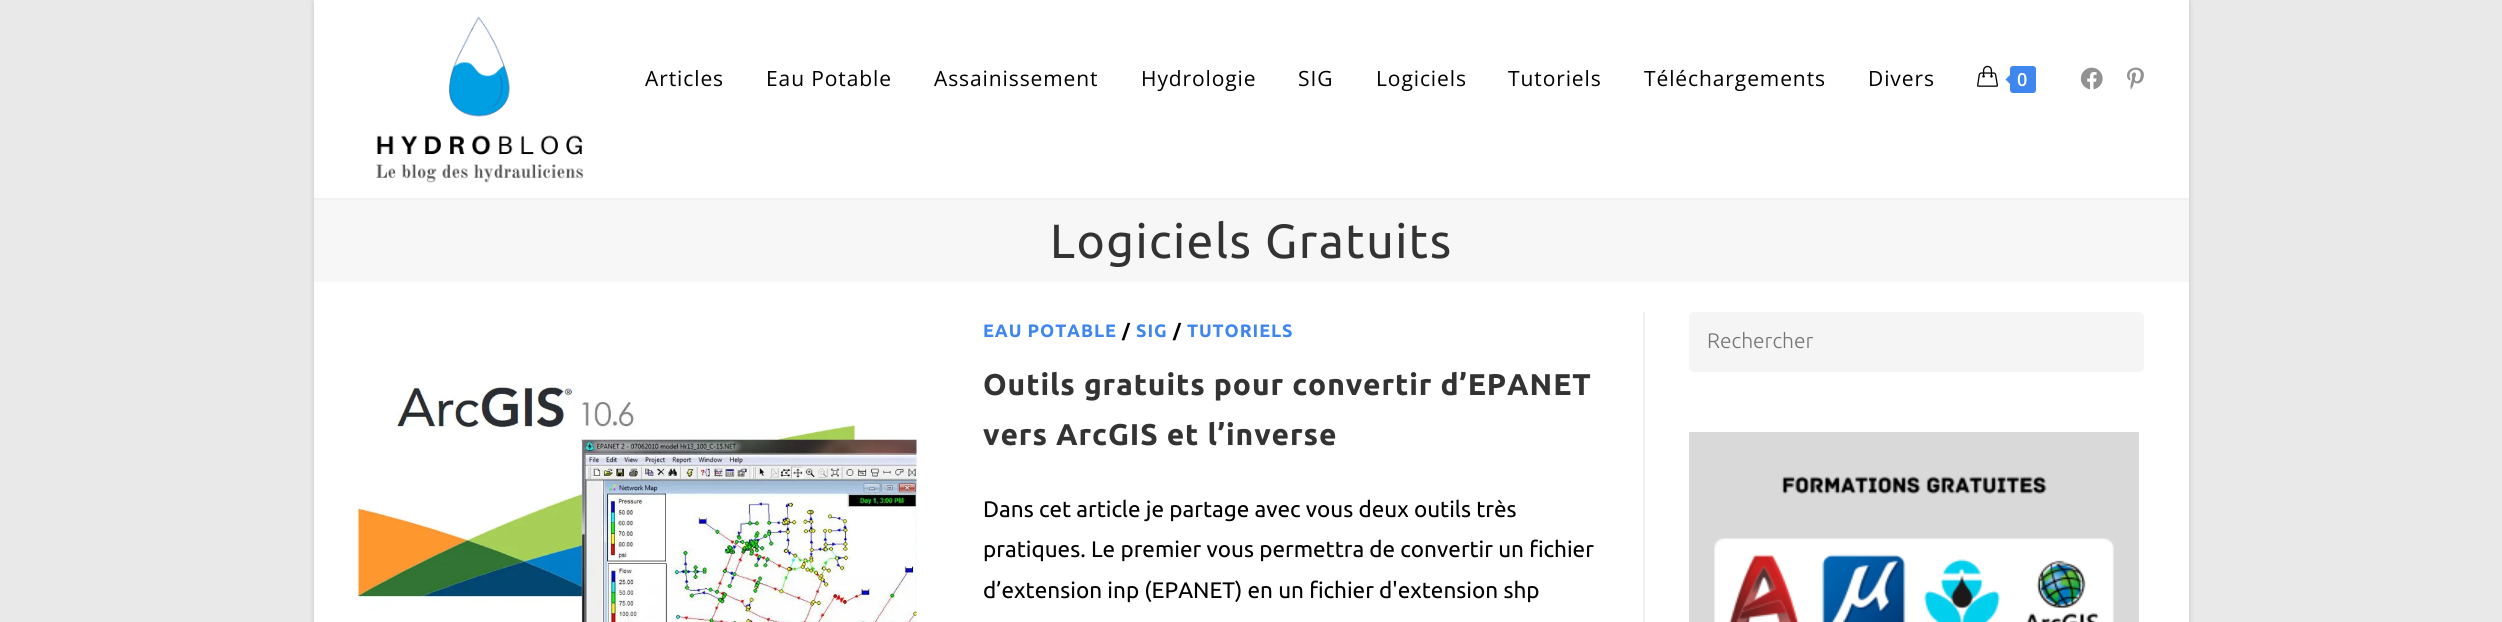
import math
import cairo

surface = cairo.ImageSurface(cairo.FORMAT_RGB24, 2502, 622)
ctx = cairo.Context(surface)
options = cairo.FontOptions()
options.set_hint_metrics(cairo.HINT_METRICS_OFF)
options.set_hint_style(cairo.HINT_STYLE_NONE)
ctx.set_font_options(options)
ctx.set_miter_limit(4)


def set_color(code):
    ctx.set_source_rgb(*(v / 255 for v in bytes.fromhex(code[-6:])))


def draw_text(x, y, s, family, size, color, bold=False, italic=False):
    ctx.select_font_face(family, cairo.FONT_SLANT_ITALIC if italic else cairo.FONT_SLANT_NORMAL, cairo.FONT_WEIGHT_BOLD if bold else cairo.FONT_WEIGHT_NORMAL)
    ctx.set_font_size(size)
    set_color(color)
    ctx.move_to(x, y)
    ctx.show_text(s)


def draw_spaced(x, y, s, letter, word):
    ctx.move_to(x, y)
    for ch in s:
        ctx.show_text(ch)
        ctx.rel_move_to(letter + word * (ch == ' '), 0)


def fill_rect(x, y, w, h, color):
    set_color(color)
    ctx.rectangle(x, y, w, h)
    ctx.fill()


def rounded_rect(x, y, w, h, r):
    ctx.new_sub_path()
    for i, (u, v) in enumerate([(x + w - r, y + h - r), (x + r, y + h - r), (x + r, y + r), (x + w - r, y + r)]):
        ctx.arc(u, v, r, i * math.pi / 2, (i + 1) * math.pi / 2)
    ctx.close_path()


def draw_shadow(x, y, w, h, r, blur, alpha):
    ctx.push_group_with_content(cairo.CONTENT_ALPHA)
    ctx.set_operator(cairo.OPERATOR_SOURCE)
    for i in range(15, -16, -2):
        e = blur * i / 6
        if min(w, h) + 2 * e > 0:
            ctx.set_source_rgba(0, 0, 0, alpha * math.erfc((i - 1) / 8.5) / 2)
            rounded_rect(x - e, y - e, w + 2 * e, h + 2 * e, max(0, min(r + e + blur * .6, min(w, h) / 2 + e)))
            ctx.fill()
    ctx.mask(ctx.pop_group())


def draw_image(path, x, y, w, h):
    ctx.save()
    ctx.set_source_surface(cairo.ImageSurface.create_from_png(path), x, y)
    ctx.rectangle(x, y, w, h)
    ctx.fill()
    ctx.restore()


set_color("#e9e9e9")
ctx.paint()
set_color("#000000")
draw_shadow(314, 2, 1875, 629, 0, 3, 0.15)
fill_rect(314, 0, 1875, 622, "#ffffff")
fill_rect(314, 198, 1875, 2, "#f1f1f1")
draw_image("assets/img1.png", 376, 16, 208, 167)
ctx.select_font_face("Open Sans")
ctx.set_font_size(21)
set_color("#000000")
draw_spaced(645, 86, "Articles", 0.9, 0)
draw_spaced(766, 86, "Eau Potable", 0.9, 0)
draw_spaced(934, 86, "Assainissement", 0.9, 0)
draw_spaced(1141, 86, "Hydrologie", 0.9, 0)
draw_spaced(1298, 86, "SIG", 0.9, 0)
draw_spaced(1376, 86, "Logiciels", 0.9, 0)
draw_spaced(1508, 86, "Tutoriels", 0.9, 0)
draw_spaced(1644, 86, "Téléchargements", 0.9, 0)
draw_spaced(1868, 86, "Divers", 0.9, 0)
draw_image("assets/img2.png", 1977, 65, 21, 22)
set_color("#4086ef")
rounded_rect(2010, 66, 26, 27, 3)
ctx.fill()
ctx.new_path()
ctx.move_to(2013, 72)
ctx.line_to(2013, 87)
ctx.line_to(2005.5, 79.5)
ctx.close_path()
ctx.fill()
draw_text(2017, 86, "0", "Open Sans SemiBold", 18, "#ffffff")
draw_image("assets/img3.png", 2080, 67, 23, 23)
draw_image("assets/img4.png", 2127, 67, 17, 23)
fill_rect(314, 200, 1875, 82, "#f7f7f7")
ctx.select_font_face("Ubuntu")
ctx.set_font_size(48)
set_color("#333333")
draw_spaced(1050, 258, "Logiciels Gratuits", 1.5, 0)
fill_rect(1643, 312, 2, 310, "#f1f1f1")
draw_image("assets/img5.png", 358, 385, 559, 237)
ctx.select_font_face("Ubuntu", cairo.FONT_SLANT_NORMAL, cairo.FONT_WEIGHT_BOLD)
ctx.set_font_size(18)
set_color("#4086ef")
draw_spaced(983, 337, "EAU POTABLE", 0.9, 0)
set_color("#000000")
draw_spaced(1122, 337, "/", 0.9, 0)
set_color("#4086ef")
draw_spaced(1136, 337, "SIG", 0.9, 0)
set_color("#000000")
draw_spaced(1173, 337, "/", 0.9, 0)
set_color("#4086ef")
draw_spaced(1187, 337, "TUTORIELS", 0.9, 0)
ctx.set_font_size(30)
set_color("#333333")
draw_spaced(983, 395, "Outils gratuits pour convertir d’EPANET", 0.9, 0)
draw_spaced(983, 445, "vers ArcGIS et l’inverse", 0.9, 0)
draw_text(983, 517, "Dans cet article je partage avec vous deux outils très", "Ubuntu", 22.5, "#000000")
draw_text(983, 557, "pratiques. Le premier vous permettra de convertir un fichier", "Ubuntu", 22.5, "#000000")
draw_text(983, 598, "d’extension inp (EPANET) en un fichier d'extension shp", "Ubuntu", 22.5, "#000000")
set_color("#f5f5f5")
rounded_rect(1689, 312, 455, 60, 5)
ctx.fill()
draw_text(1707, 348, "Rechercher", "Ubuntu Light", 21, "#757575")
draw_image("assets/img6.png", 1689, 432, 450, 190)
surface.write_to_png("output.png")
